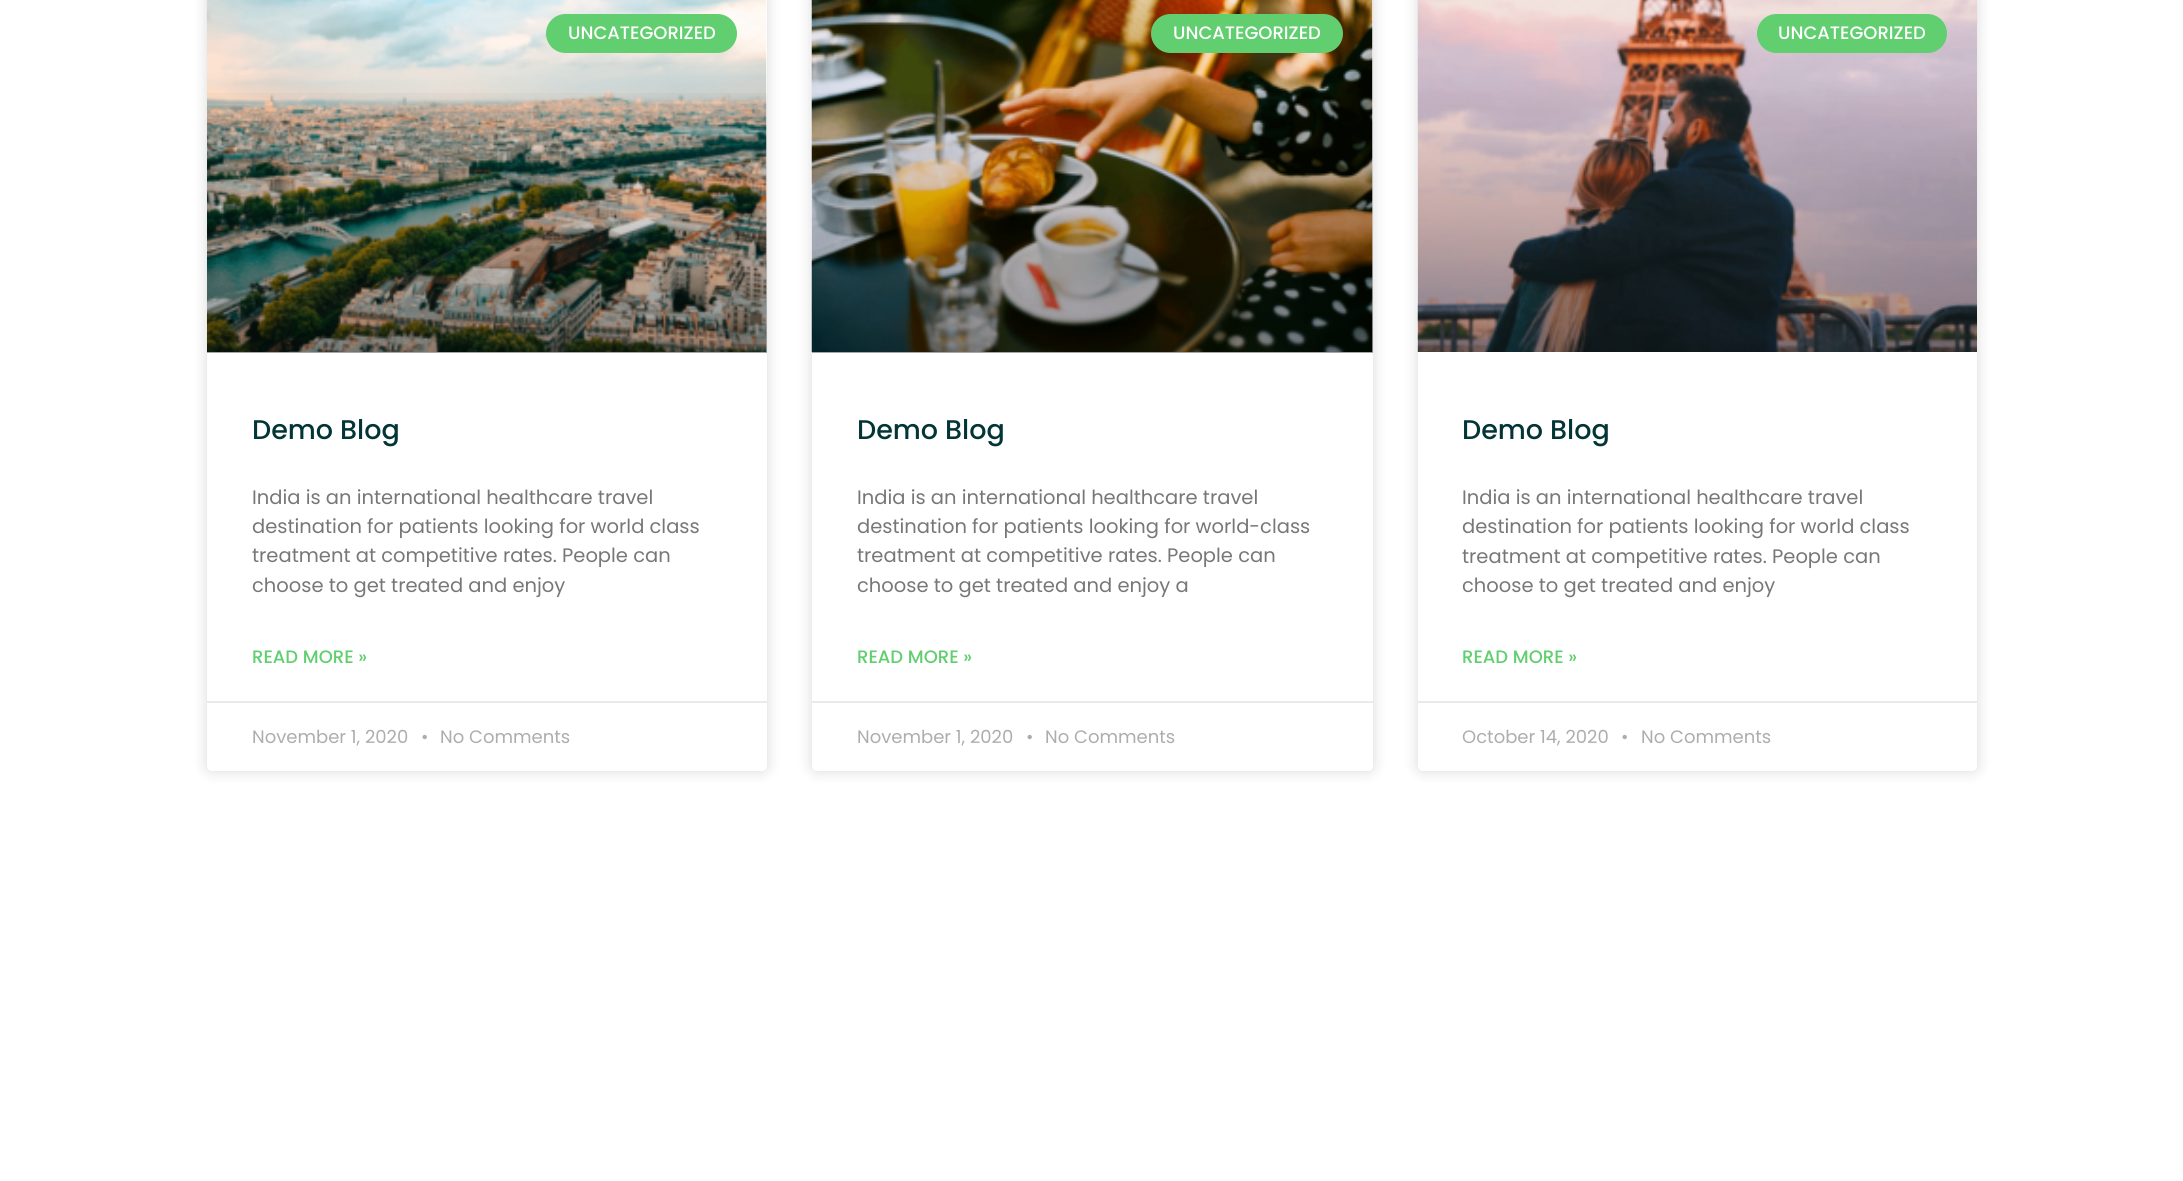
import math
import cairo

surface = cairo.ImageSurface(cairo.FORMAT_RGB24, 2183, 1181)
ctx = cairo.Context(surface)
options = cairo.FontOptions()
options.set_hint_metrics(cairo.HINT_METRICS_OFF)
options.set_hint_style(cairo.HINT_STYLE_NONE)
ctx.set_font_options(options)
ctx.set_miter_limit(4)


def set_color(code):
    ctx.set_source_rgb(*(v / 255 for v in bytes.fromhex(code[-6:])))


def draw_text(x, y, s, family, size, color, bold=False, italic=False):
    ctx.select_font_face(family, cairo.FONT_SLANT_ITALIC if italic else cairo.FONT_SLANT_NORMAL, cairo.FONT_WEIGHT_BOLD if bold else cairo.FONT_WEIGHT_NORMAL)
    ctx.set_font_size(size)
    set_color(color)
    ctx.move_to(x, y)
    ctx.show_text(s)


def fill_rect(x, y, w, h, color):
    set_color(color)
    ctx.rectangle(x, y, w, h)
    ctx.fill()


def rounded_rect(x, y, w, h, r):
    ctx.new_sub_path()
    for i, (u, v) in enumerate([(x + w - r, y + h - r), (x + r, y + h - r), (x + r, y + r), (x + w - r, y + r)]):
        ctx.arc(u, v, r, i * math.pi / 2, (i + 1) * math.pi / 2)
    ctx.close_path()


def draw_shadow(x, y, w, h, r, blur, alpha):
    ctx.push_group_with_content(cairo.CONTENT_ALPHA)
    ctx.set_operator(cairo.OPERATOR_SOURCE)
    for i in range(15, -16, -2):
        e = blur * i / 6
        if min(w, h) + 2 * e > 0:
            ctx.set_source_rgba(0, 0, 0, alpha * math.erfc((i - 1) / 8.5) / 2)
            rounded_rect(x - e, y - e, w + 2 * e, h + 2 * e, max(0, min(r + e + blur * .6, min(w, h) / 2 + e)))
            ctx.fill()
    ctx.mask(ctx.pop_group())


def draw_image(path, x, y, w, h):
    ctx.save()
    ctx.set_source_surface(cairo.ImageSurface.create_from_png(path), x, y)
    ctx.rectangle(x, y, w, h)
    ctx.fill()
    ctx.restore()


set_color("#ffffff")
ctx.paint()
set_color("#000000")
draw_shadow(207, -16, 560, 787, 5, 7.5, 0.15)
set_color("#ffffff")
rounded_rect(207, -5, 560, 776, 5)
ctx.fill()
draw_image("assets/img1.png", 207, 0, 560, 352)
gradient = cairo.LinearGradient(487, 353, 487, -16)
gradient.add_color_stop_rgba(0, 0, 0, 0, 0.35)
gradient.add_color_stop_rgba(0.75, 0, 0, 0, 0)
ctx.set_source(gradient)
ctx.rectangle(207, 93, 560, 260)
ctx.fill()
set_color("#61ce70")
rounded_rect(546, 14, 191, 39, 19.5)
ctx.fill()
draw_text(568, 39, "UNCATEGORIZED", "Poppins Medium", 18, "#ffffff")
draw_text(252, 439, "Demo Blog", "Poppins Medium", 27, "#033537")
draw_text(252, 504, "India is an international healthcare travel", "Poppins", 19.5, "#777777")
draw_text(252, 533, "destination for patients looking for world class", "Poppins", 19.5, "#777777")
draw_text(252, 562, "treatment at competitive rates. People can", "Poppins", 19.5, "#777777")
draw_text(252, 592, "choose to get treated and enjoy", "Poppins", 19.5, "#777777")
draw_text(252, 663, "READ MORE »", "Poppins Medium", 18, "#61ce70")
fill_rect(207, 701, 560, 2, "#eaeaea")
draw_text(252, 743, "November 1, 2020", "Poppins", 18, "#adadad")
draw_text(421, 743, "•", "Poppins", 18, "#adadad")
draw_text(440, 743, "No Comments", "Poppins", 18, "#adadad")
set_color("#000000")
draw_shadow(812, -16, 561, 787, 5, 7.5, 0.15)
set_color("#ffffff")
rounded_rect(812, -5, 561, 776, 5)
ctx.fill()
draw_image("assets/img2.png", 811, 0, 562, 352)
gradient = cairo.LinearGradient(1092, 353, 1092, -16)
gradient.add_color_stop_rgba(0, 0, 0, 0, 0.35)
gradient.add_color_stop_rgba(0.75, 0, 0, 0, 0)
ctx.set_source(gradient)
ctx.rectangle(812, 93, 561, 260)
ctx.fill()
set_color("#61ce70")
rounded_rect(1151, 14, 192, 39, 19.5)
ctx.fill()
draw_text(1173, 39, "UNCATEGORIZED", "Poppins Medium", 18, "#ffffff")
draw_text(857, 439, "Demo Blog", "Poppins Medium", 27, "#033537")
draw_text(857, 504, "India is an international healthcare travel", "Poppins", 19.5, "#777777")
draw_text(857, 533, "destination for patients looking for world-class", "Poppins", 19.5, "#777777")
draw_text(857, 562, "treatment at competitive rates. People can", "Poppins", 19.5, "#777777")
draw_text(857, 592, "choose to get treated and enjoy a", "Poppins", 19.5, "#777777")
draw_text(857, 663, "READ MORE »", "Poppins Medium", 18, "#61ce70")
fill_rect(812, 701, 561, 2, "#eaeaea")
draw_text(857, 743, "November 1, 2020", "Poppins", 18, "#adadad")
draw_text(1026, 743, "•", "Poppins", 18, "#adadad")
draw_text(1045, 743, "No Comments", "Poppins", 18, "#adadad")
set_color("#000000")
draw_shadow(1418, -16, 559, 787, 5, 7.5, 0.15)
set_color("#ffffff")
rounded_rect(1418, -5, 559, 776, 5)
ctx.fill()
draw_image("assets/img3.png", 1417, 0, 560, 352)
set_color("#61ce70")
rounded_rect(1757, 14, 190, 39, 19.5)
ctx.fill()
draw_text(1778, 39, "UNCATEGORIZED", "Poppins Medium", 18, "#ffffff")
draw_text(1462, 439, "Demo Blog", "Poppins Medium", 27, "#033537")
draw_text(1462, 504, "India is an international healthcare travel", "Poppins", 19.5, "#777777")
draw_text(1462, 533, "destination for patients looking for world class", "Poppins", 19.5, "#777777")
draw_text(1462, 563, "treatment at competitive rates. People can", "Poppins", 19.5, "#777777")
draw_text(1462, 592, "choose to get treated and enjoy", "Poppins", 19.5, "#777777")
draw_text(1462, 663, "READ MORE »", "Poppins Medium", 18, "#61ce70")
fill_rect(1418, 701, 559, 2, "#eaeaea")
draw_text(1462, 743, "October 14, 2020", "Poppins", 18, "#adadad")
draw_text(1621, 743, "•", "Poppins", 18, "#adadad")
draw_text(1641, 743, "No Comments", "Poppins", 18, "#adadad")
surface.write_to_png("output.png")
